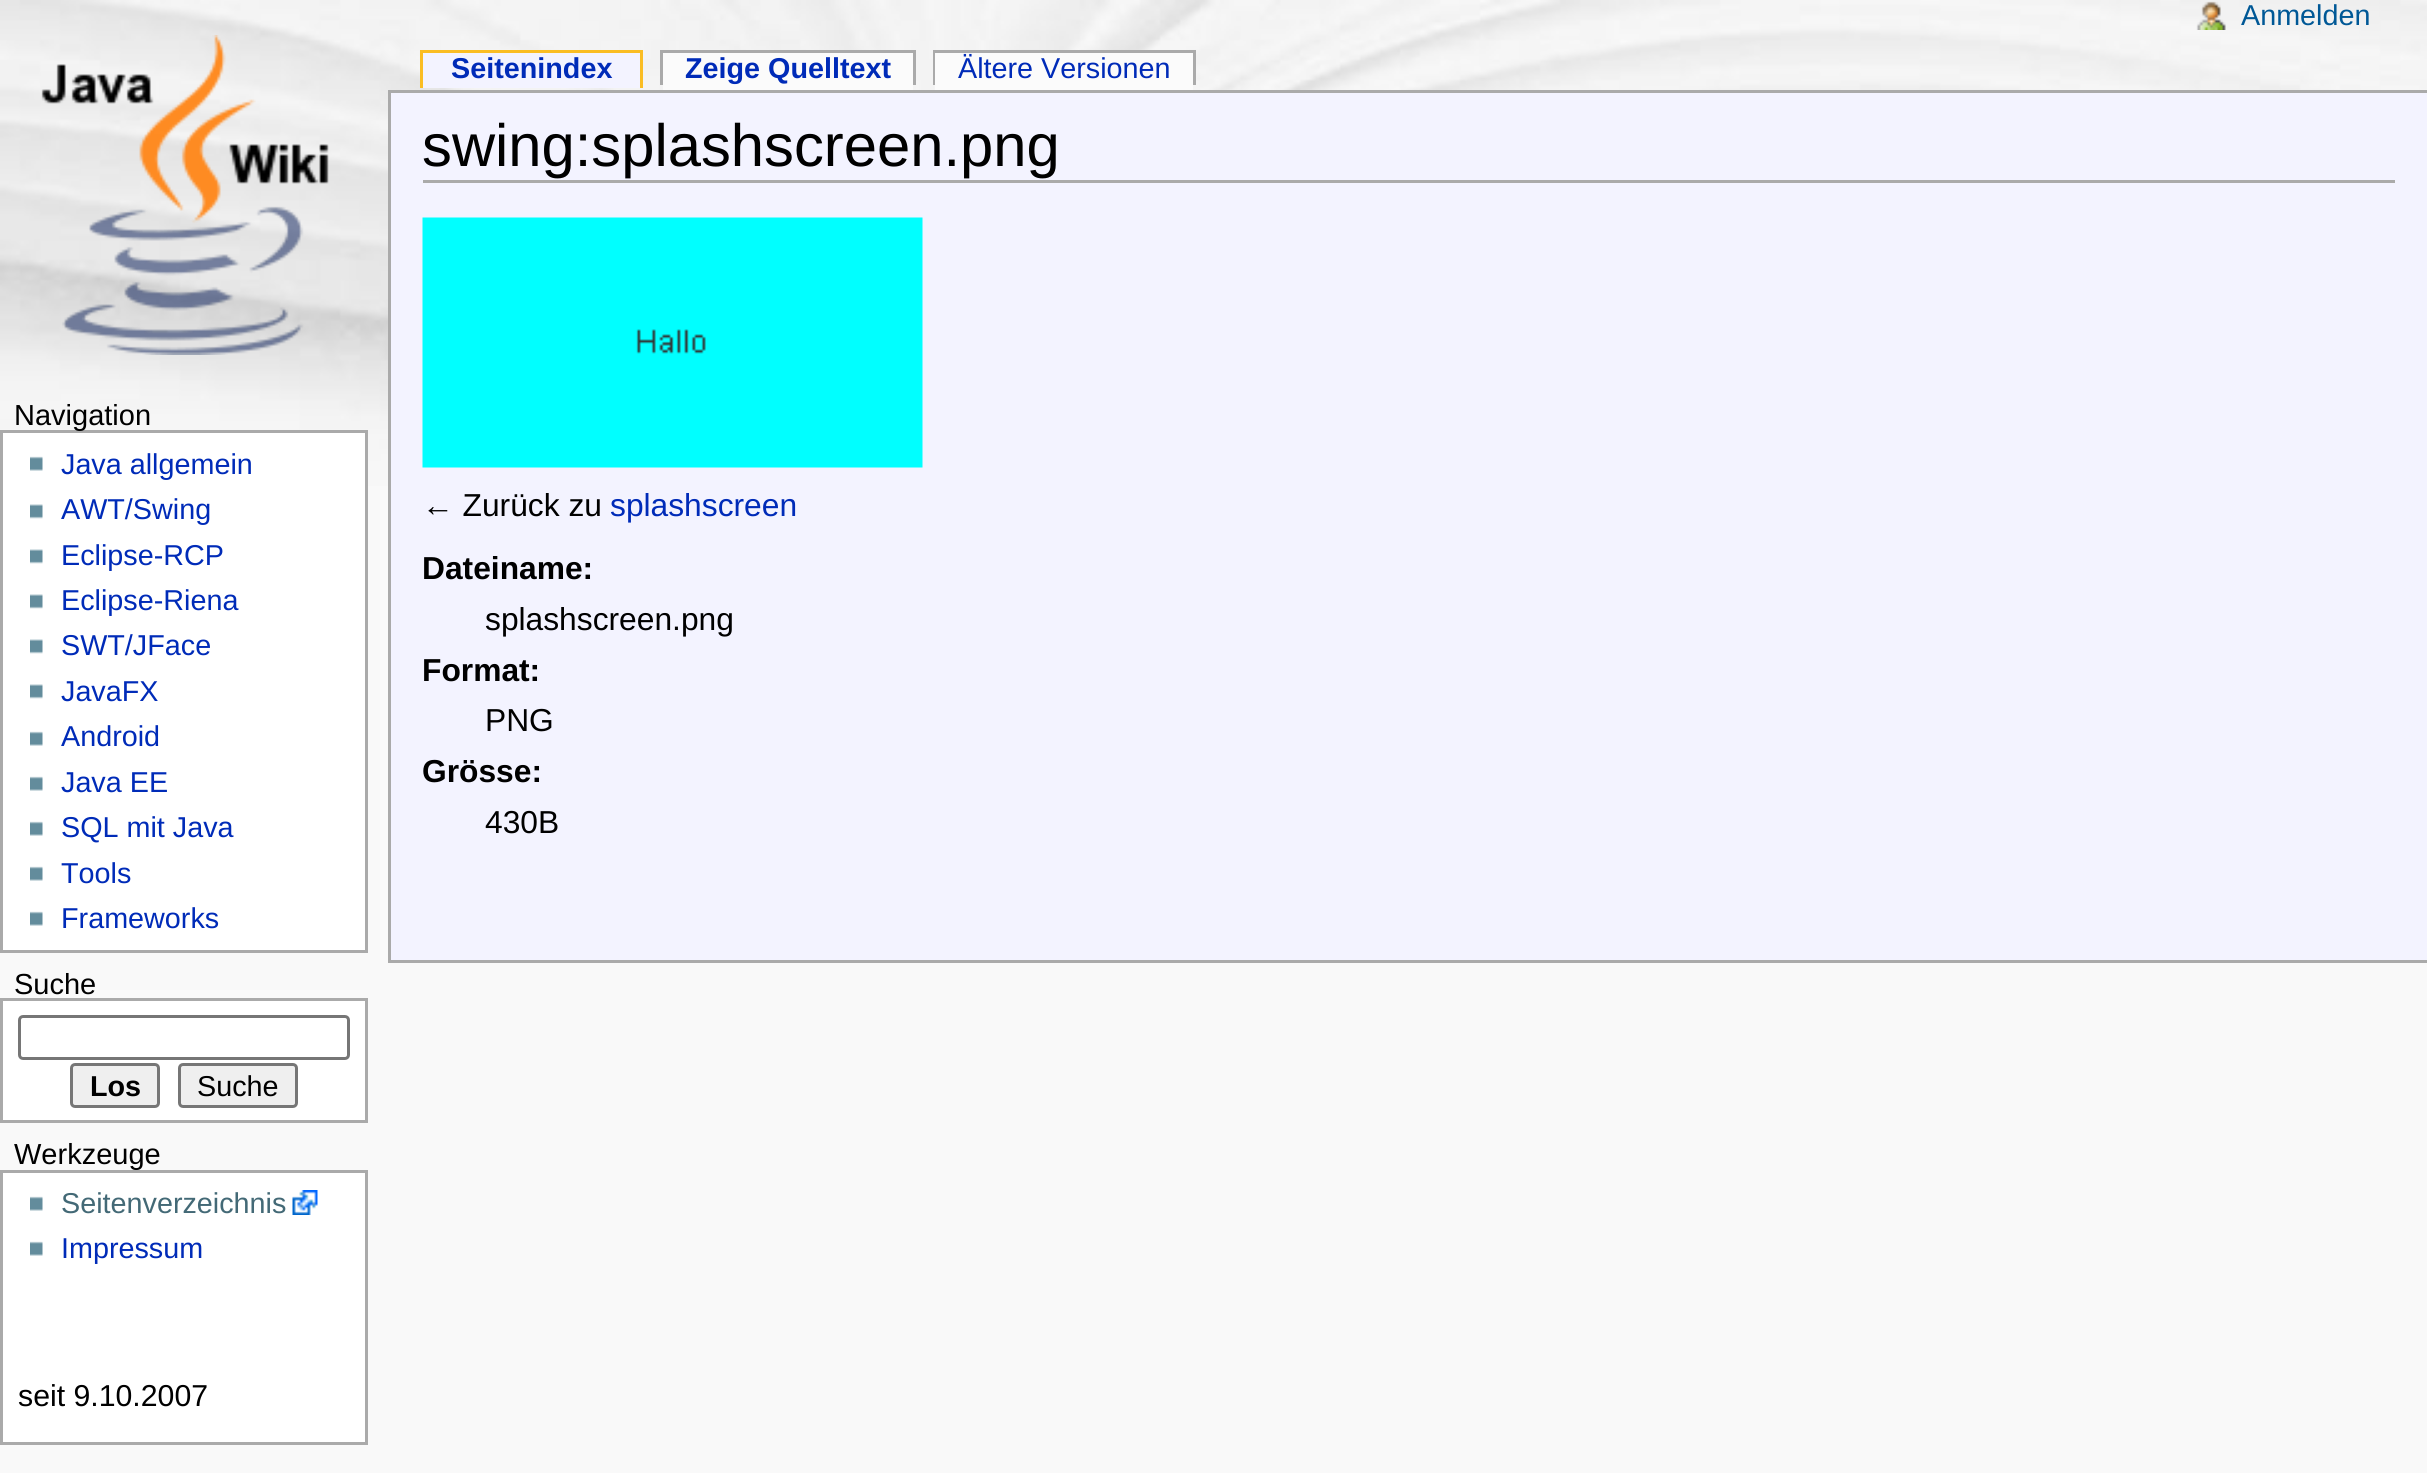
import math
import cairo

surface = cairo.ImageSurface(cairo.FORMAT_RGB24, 2427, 1473)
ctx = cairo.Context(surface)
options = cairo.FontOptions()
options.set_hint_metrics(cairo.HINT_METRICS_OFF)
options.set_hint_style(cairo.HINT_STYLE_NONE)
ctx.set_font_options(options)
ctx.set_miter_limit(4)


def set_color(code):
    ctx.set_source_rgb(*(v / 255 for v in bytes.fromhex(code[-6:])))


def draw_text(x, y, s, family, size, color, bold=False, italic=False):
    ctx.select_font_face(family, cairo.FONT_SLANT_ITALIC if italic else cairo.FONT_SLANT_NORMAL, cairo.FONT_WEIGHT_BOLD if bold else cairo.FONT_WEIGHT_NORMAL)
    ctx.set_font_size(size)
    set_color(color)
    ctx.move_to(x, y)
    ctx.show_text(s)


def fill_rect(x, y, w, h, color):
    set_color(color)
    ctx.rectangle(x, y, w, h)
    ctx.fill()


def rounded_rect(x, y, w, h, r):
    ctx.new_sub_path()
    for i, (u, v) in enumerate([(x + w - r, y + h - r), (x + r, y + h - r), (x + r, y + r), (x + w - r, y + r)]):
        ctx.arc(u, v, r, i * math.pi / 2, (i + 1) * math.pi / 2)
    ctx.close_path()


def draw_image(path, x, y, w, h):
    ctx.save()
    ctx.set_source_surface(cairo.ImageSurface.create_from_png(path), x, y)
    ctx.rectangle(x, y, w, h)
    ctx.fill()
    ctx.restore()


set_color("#f9f9f9")
ctx.paint()
draw_image("assets/img1.png", 0, 0, 2427, 486)
draw_image("assets/img2.png", 2196, 1, 30, 29)
draw_text(2241, 25, "Anmelden", "Liberation Sans", 28.75, "#005896")
draw_image("assets/img3.png", 41, 35, 288, 320)
fill_rect(423, 53, 217, 35, "#f3f3ff")
draw_text(451, 78, "Seitenindex", "Liberation Sans", 28.75, "#002bb8", bold=True)
fill_rect(420, 50, 223, 3, "#fabd23")
fill_rect(640, 50, 3, 38, "#fabd23")
fill_rect(420, 50, 3, 38, "#fabd23")
fill_rect(663, 53, 250, 37, "#fbfbfb")
draw_text(685, 78, "Zeige Quelltext", "Liberation Sans", 28.75, "#002bb8", bold=True)
fill_rect(660, 50, 255, 3, "#aaaaaa")
fill_rect(913, 50, 3, 35, "#aaaaaa")
fill_rect(660, 50, 3, 35, "#aaaaaa")
fill_rect(933, 50, 262, 3, "#aaaaaa")
fill_rect(933, 50, 3, 35, "#aaaaaa")
fill_rect(935, 53, 258, 37, "#fbfbfb")
draw_text(958, 78, "Ältere Versionen", "Liberation Sans", 28.75, "#002bb8")
fill_rect(1193, 50, 3, 35, "#aaaaaa")
set_color("#ffffff")
ctx.rectangle(1.5, 431.5, 365, 520)
ctx.fill_preserve()
set_color("#aaaaaa")
ctx.set_line_width(3)
ctx.stroke()
draw_text(14, 425, "Navigation", "Liberation Sans", 29, "#000000")
draw_image("assets/img4.png", 30, 456, 13, 15)
draw_text(61, 474, "Java allgemein", "Liberation Sans", 28.75, "#002bb8")
draw_image("assets/img5.png", 30, 504, 13, 15)
draw_text(61, 519, "AWT/Swing", "Liberation Sans", 28.75, "#002bb8")
draw_image("assets/img5.png", 30, 549, 13, 15)
draw_text(61, 565, "Eclipse-RCP", "Liberation Sans", 28.75, "#002bb8")
draw_image("assets/img6.png", 30, 594, 13, 15)
draw_text(61, 610, "Eclipse-Riena", "Liberation Sans", 28.75, "#002bb8")
draw_image("assets/img5.png", 30, 639, 13, 15)
draw_text(61, 655, "SWT/JFace", "Liberation Sans", 28.75, "#002bb8")
draw_image("assets/img5.png", 30, 684, 13, 15)
draw_text(61, 701, "JavaFX", "Liberation Sans", 28.75, "#002bb8")
draw_image("assets/img4.png", 30, 731, 13, 15)
draw_text(61, 746, "Android", "Liberation Sans", 28.75, "#002bb8")
draw_image("assets/img4.png", 30, 776, 13, 15)
draw_text(61, 792, "Java EE", "Liberation Sans", 28.75, "#002bb8")
draw_image("assets/img4.png", 30, 821, 13, 15)
draw_text(61, 837, "SQL mit Java", "Liberation Sans", 28.75, "#002bb8")
draw_image("assets/img4.png", 30, 866, 13, 15)
draw_text(61, 883, "Tools", "Liberation Sans", 28.75, "#002bb8")
draw_image("assets/img4.png", 30, 911, 13, 15)
draw_text(61, 928, "Frameworks", "Liberation Sans", 28.75, "#002bb8")
draw_text(14, 994, "Suche", "Liberation Sans", 29, "#000000")
set_color("#ffffff")
ctx.rectangle(1.5, 999.5, 365, 122)
ctx.fill_preserve()
set_color("#aaaaaa")
ctx.stroke()
rounded_rect(19.5, 1016.5, 329, 42, 3.5)
set_color("#767676")
ctx.stroke()
set_color("#efefef")
rounded_rect(71.5, 1064.5, 87, 42, 3.5)
ctx.fill_preserve()
set_color("#767676")
ctx.stroke()
draw_text(90, 1096, "Los", "Liberation Sans", 28.75, "#000000", bold=True)
set_color("#efefef")
rounded_rect(179.5, 1064.5, 117, 42, 3.5)
ctx.fill_preserve()
set_color("#767676")
ctx.stroke()
draw_text(197, 1096, "Suche", "Liberation Sans", 28.75, "#000000")
draw_text(14, 1164, "Werkzeuge", "Liberation Sans", 29, "#000000")
set_color("#ffffff")
ctx.rectangle(1.5, 1171.5, 365, 272)
ctx.fill_preserve()
set_color("#aaaaaa")
ctx.stroke()
draw_image("assets/img4.png", 30, 1196, 13, 15)
draw_text(61, 1213, "Seitenverzeichnis", "Liberation Sans", 28.75, "#436976")
draw_image("assets/img7.png", 292, 1190, 26, 25)
draw_image("assets/img4.png", 30, 1241, 13, 15)
draw_text(61, 1258, "Impressum", "Liberation Sans", 28.75, "#002bb8")
draw_text(18, 1406, "seit 9.10.2007", "Liberation Sans", 30.25, "#000000")
fill_rect(391, 93, 2036, 867, "#f3f3ff")
fill_rect(388, 90, 2039, 3, "#aaaaaa")
fill_rect(388, 960, 2039, 3, "#aaaaaa")
fill_rect(388, 90, 3, 873, "#aaaaaa")
fill_rect(423, 180, 1972, 3, "#aaaaaa")
draw_text(422, 166, "swing:splashscreen.png", "Liberation Sans", 59.75, "#000000")
draw_image("assets/img8.png", 422, 217, 501, 251)
draw_text(422, 516, "← Zurück zu", "Liberation Sans", 31.75, "#000000")
draw_text(610, 516, "splashscreen", "Liberation Sans", 31.75, "#002bb8")
draw_text(422, 579, "Dateiname:", "Liberation Sans", 31.75, "#000000", bold=True)
draw_text(485, 630, "splashscreen.png", "Liberation Sans", 31.75, "#000000")
draw_text(422, 681, "Format:", "Liberation Sans", 31.75, "#000000", bold=True)
draw_text(485, 731, "PNG", "Liberation Sans", 31.75, "#000000")
draw_text(422, 782, "Grösse:", "Liberation Sans", 31.75, "#000000", bold=True)
draw_text(485, 833, "430B", "Liberation Sans", 31.75, "#000000")
surface.write_to_png("output.png")
